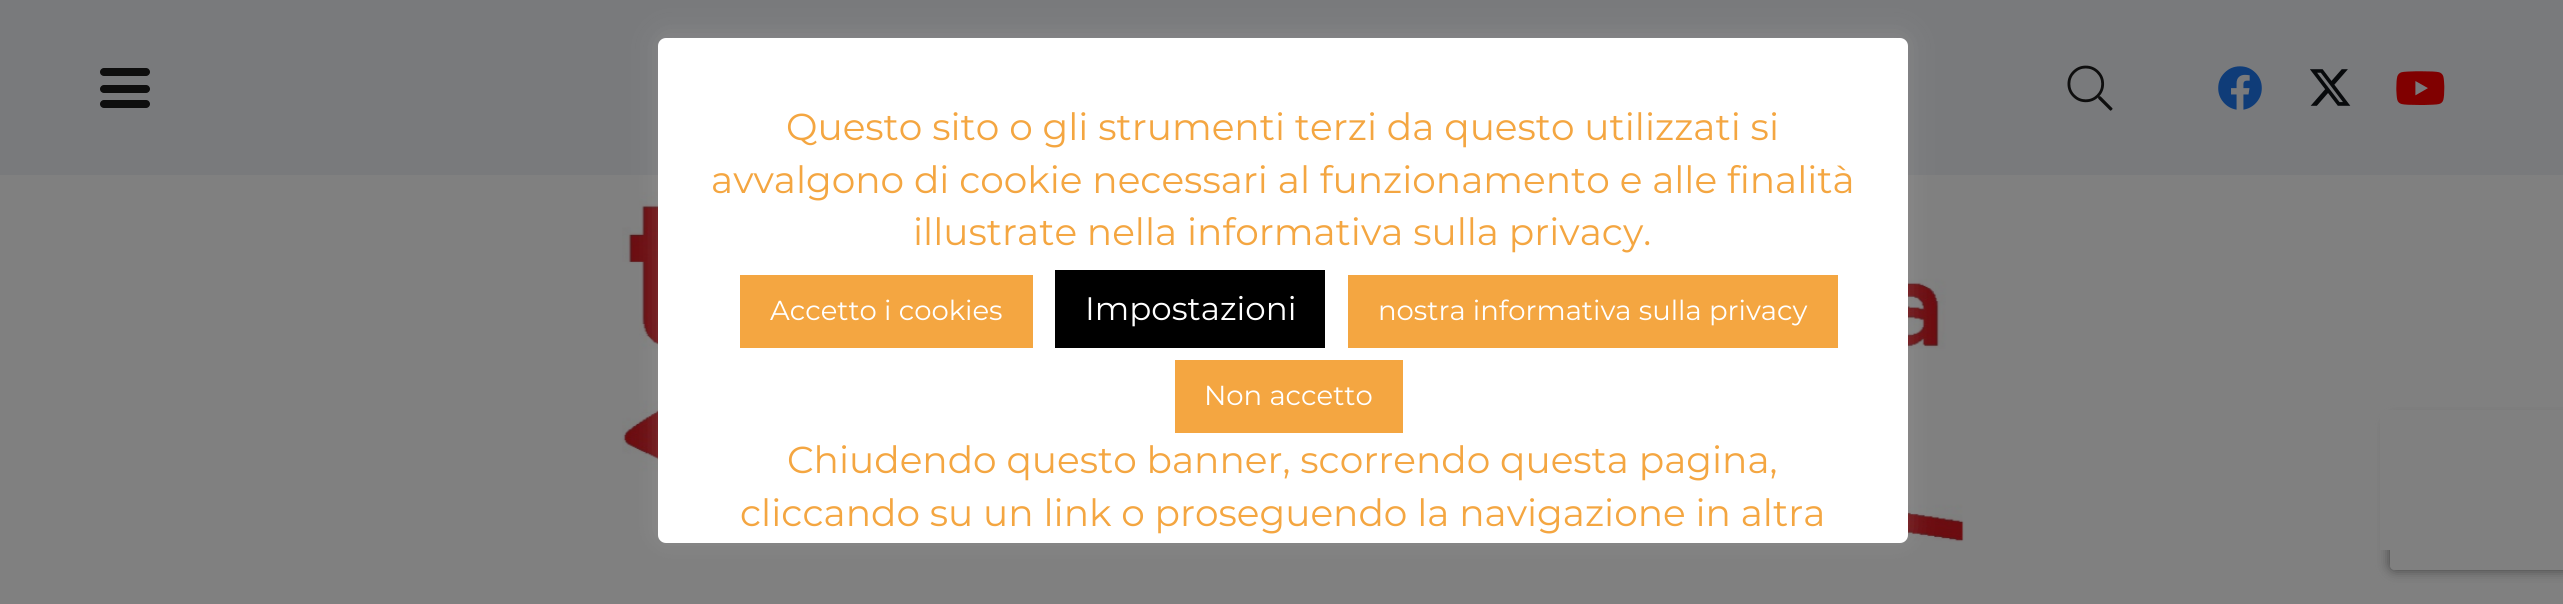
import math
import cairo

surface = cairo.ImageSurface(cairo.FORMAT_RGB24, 2563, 604)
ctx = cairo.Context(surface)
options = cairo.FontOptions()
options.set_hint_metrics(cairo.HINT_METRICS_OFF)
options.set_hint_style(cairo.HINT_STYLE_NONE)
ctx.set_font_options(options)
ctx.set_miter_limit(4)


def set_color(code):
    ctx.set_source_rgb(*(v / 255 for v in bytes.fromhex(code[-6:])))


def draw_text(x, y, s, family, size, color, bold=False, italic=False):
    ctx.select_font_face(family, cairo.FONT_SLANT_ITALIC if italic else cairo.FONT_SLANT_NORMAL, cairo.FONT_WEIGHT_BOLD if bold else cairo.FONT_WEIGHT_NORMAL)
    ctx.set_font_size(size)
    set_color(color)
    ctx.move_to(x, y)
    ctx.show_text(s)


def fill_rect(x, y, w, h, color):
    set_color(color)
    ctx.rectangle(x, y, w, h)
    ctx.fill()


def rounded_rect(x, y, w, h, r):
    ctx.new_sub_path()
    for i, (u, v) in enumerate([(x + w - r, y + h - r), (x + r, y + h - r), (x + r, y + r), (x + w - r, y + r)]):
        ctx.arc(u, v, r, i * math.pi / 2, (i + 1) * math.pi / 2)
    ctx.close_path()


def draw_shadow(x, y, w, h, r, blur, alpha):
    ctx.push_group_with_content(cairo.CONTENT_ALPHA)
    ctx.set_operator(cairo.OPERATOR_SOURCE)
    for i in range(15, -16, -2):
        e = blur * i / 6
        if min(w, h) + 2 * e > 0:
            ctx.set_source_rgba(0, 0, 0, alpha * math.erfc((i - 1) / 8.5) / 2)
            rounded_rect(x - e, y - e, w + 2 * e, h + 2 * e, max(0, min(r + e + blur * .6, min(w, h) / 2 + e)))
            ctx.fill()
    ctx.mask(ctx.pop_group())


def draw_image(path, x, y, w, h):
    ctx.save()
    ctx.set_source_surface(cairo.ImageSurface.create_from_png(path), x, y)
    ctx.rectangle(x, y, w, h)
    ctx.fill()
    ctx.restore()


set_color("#808080")
ctx.paint()
fill_rect(0, 0, 2563, 175, "#797a7c")
set_color("#0e0e0e")
rounded_rect(100, 85, 50, 8, 4)
ctx.fill()
rounded_rect(100, 68, 50, 8, 4)
ctx.fill()
rounded_rect(100, 100, 50, 8, 4)
ctx.fill()
draw_image("assets/img1.png", 2067, 65, 46, 46)
draw_image("assets/img2.png", 2218, 66, 44, 44)
draw_image("assets/img3.png", 2310, 69, 41, 37)
draw_image("assets/img4.png", 2396, 71, 49, 34)
ctx.save()
ctx.set_fill_rule(cairo.FILL_RULE_EVEN_ODD)
ctx.new_path()
ctx.move_to(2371, 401)
ctx.line_to(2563, 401)
ctx.line_to(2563, 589)
ctx.line_to(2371, 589)
ctx.close_path()
ctx.move_to(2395, 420)
ctx.line_to(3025, 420)
ctx.curve_to(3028, 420, 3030, 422, 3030, 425)
ctx.line_to(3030, 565)
ctx.curve_to(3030, 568, 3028, 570, 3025, 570)
ctx.line_to(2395, 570)
ctx.curve_to(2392, 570, 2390, 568, 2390, 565)
ctx.line_to(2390, 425)
ctx.curve_to(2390, 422, 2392, 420, 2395, 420)
ctx.close_path()
ctx.clip()
set_color("#404040")
draw_shadow(2390, 420, 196, 150, 5, 6, 1)
ctx.restore()
fill_rect(2380, 410, 183, 140, "#808080")
draw_image("assets/img5.png", 622, 191, 1342, 351)
set_color("#acabab")
draw_shadow(658, 35, 1250, 505, 8, 12.5, 0.3)
set_color("#ffffff")
rounded_rect(658, 38, 1250, 505, 8)
ctx.fill()
draw_text(786, 140, "Questo sito o gli strumenti terzi da questo utilizzati si", "Montserrat", 37.5, "#f4a641")
draw_text(711, 193, "avvalgono di cookie necessari al funzionamento e alle finalità", "Montserrat", 37.5, "#f4a641")
draw_text(913, 245, "illustrate nella informativa sulla privacy.", "Montserrat", 37.5, "#f4a641")
fill_rect(740, 275, 293, 73, "#f4a641")
draw_text(770, 320, "Accetto i cookies", "Montserrat", 27.5, "#ffffff")
fill_rect(1055, 270, 270, 78, "#000000")
draw_text(1085, 320, "Impostazioni", "Montserrat", 32.5, "#ffffff")
fill_rect(1348, 275, 490, 73, "#f4a641")
draw_text(1378, 320, "nostra informativa sulla privacy", "Montserrat", 27.5, "#ffffff")
fill_rect(1175, 360, 228, 73, "#f4a641")
draw_text(1204, 405, "Non accetto", "Montserrat", 27.5, "#ffffff")
draw_text(787, 473, "Chiudendo questo banner, scorrendo questa pagina,", "Montserrat", 37.5, "#f4a641")
draw_text(740, 526, "cliccando su un link o proseguendo la navigazione in altra", "Montserrat", 37.5, "#f4a641")
surface.write_to_png("output.png")
